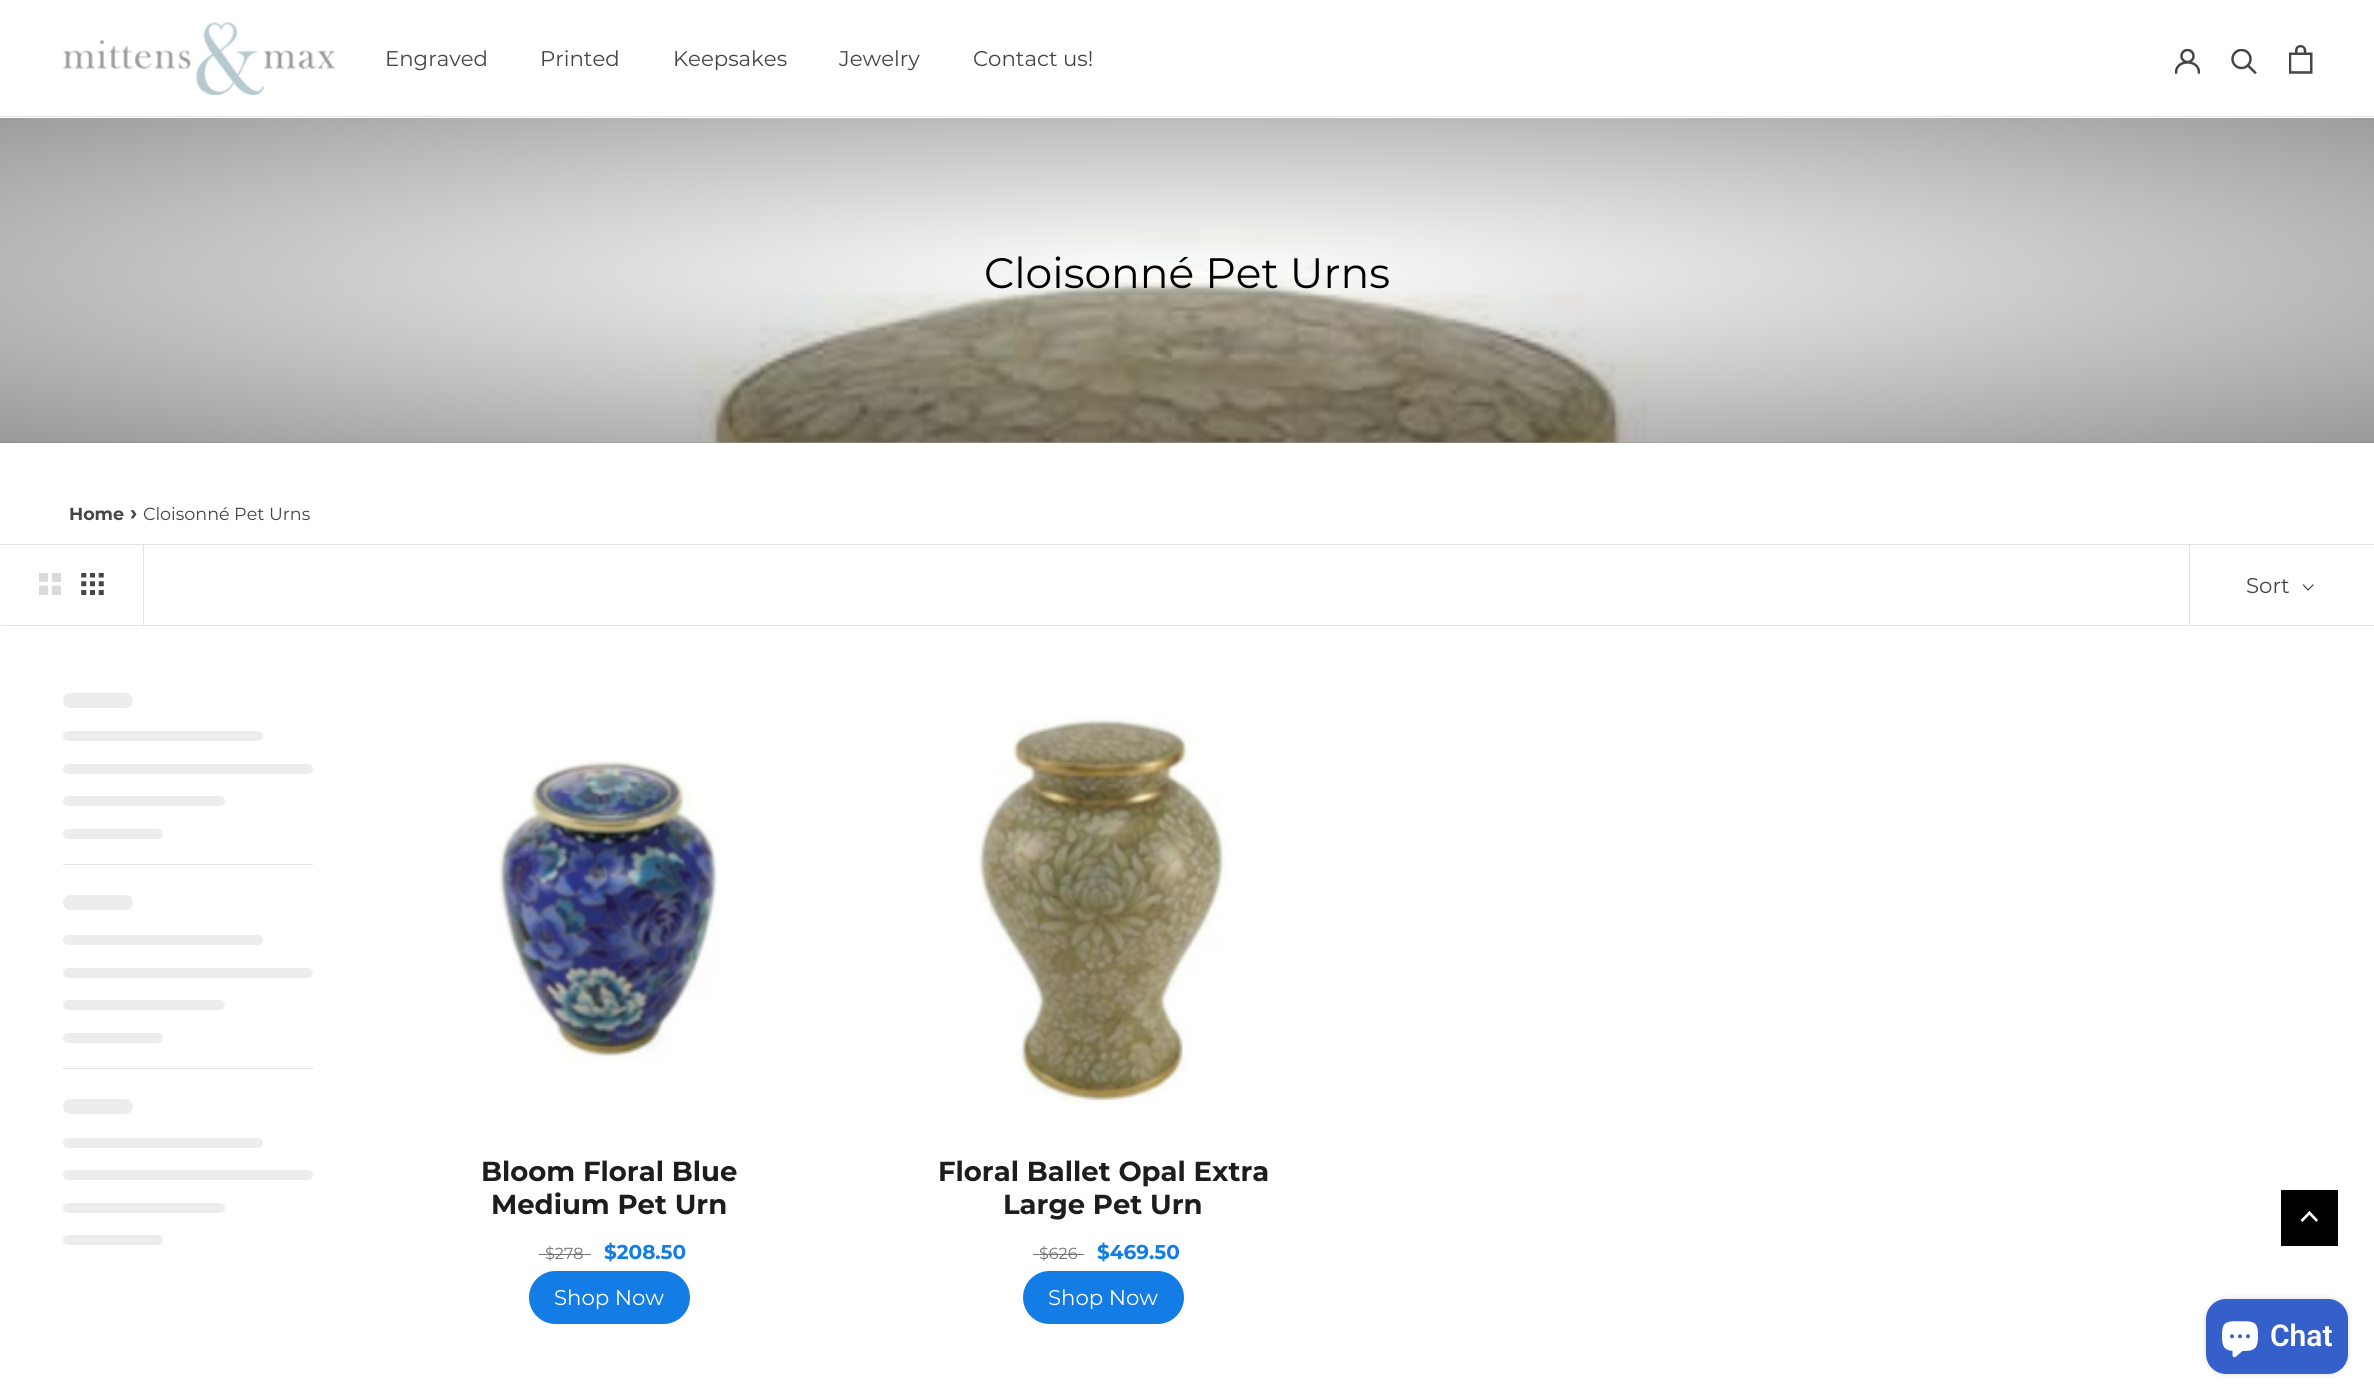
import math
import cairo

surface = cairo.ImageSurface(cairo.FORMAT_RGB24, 2374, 1400)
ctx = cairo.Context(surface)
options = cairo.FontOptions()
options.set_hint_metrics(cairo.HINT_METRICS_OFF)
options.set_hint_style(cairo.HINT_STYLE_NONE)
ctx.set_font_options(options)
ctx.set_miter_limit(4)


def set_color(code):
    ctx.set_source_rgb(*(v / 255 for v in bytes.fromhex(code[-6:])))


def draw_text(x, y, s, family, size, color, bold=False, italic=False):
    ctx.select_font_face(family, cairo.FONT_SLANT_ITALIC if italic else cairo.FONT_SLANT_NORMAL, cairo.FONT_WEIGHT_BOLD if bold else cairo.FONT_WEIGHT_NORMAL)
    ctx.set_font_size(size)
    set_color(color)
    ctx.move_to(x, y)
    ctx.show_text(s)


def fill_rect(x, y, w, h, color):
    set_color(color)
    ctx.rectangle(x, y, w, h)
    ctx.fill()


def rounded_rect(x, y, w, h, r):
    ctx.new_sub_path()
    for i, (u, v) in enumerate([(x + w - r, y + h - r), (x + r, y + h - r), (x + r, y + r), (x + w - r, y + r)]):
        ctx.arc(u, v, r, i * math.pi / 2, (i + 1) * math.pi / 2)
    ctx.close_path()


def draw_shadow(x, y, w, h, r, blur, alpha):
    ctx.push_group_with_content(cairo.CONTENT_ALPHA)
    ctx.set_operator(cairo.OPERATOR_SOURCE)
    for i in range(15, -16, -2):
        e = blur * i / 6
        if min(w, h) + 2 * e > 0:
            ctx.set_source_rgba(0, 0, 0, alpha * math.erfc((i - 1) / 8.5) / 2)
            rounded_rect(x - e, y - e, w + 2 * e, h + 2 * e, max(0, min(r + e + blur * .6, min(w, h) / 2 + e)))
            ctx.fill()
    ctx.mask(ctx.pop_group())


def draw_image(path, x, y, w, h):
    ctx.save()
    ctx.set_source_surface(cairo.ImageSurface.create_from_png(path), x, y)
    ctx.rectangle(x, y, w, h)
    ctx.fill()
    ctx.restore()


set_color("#ffffff")
ctx.paint()
fill_rect(0, 116, 2374, 1, "#e3e3e3")
draw_image("assets/img1.png", 62, 22, 274, 73)
draw_text(385, 66, "Engraved", "Montserrat", 21.25, "#454545")
draw_text(540, 66, "Printed", "Montserrat", 21.25, "#454545")
draw_text(673, 66, "Keepsakes", "Montserrat", 21.25, "#454545")
draw_text(839, 66, "Jewelry", "Montserrat", 21.25, "#454545")
draw_text(973, 66, "Contact us!", "Montserrat", 21.25, "#454545")
ctx.save()
ctx.rectangle(2175, 49, 25, 25)
ctx.clip()
ctx.new_path()
ctx.move_to(2176, 72.5)
ctx.curve_to(2176, 59, 2199, 59, 2199, 72.5)
ctx.set_line_width(2.5)
ctx.set_line_cap(cairo.LINE_CAP_SQUARE)
ctx.stroke()
ctx.arc(2187.5, 56, 6, 0, 2 * math.pi)
ctx.set_line_cap(cairo.LINE_CAP_BUTT)
ctx.stroke()
ctx.restore()
ctx.new_path()
ctx.move_to(2255, 72.5)
ctx.line_to(2248, 65.5)
ctx.set_line_width(2.5)
ctx.set_line_cap(cairo.LINE_CAP_SQUARE)
ctx.stroke()
ctx.save()
ctx.rectangle(2231, 49, 27, 26)
ctx.clip()
ctx.arc(2241.5, 59, 9, 0, 2 * math.pi)
ctx.set_line_cap(cairo.LINE_CAP_BUTT)
ctx.stroke()
ctx.restore()
draw_image("assets/img2.png", 2289, 45, 24, 29)
fill_rect(0, 442, 2374, 1, "#dbd8cd")
draw_image("assets/img3.png", 0, 118, 2374, 325)
gradient = cairo.RadialGradient(0, 0, 0, 0, 0, 1)
gradient.set_matrix(cairo.Matrix(1 / 1679, 0, 0, 1 / 239, -1 * 1188 / 1679, -1 * 274 / 239))
gradient.add_color_stop_rgba(0, 0, 0, 0, 0)
gradient.add_color_stop_rgba(1, 0, 0, 0, 0.4)
ctx.set_source(gradient)
ctx.rectangle(0, 118, 2374, 325)
ctx.fill()
draw_text(984, 288, "Cloisonné Pet Urns", "Montserrat", 42.5, "#000000")
draw_text(69, 520, "Home", "Montserrat", 17.5, "#454545", bold=True)
draw_text(130, 520, "›", "Montserrat", 21.25, "#454545", bold=True)
draw_text(143, 520, "Cloisonné Pet Urns", "Montserrat", 17.5, "#454545")
set_color("#e3e3e3")
ctx.new_path()
ctx.move_to(-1, 544)
ctx.line_to(-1, 624)
ctx.line_to(0, 624)
ctx.line_to(0, 545)
ctx.line_to(2374, 545)
ctx.line_to(2374, 544)
ctx.close_path()
ctx.fill()
ctx.new_path()
ctx.move_to(1, 625)
ctx.line_to(1, 626)
ctx.line_to(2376, 626)
ctx.line_to(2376, 546)
ctx.line_to(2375, 546)
ctx.line_to(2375, 625)
ctx.close_path()
ctx.fill()
fill_rect(143, 545, 1, 80, "#e3e3e3")
draw_image("assets/img4.png", 39, 573, 22, 22)
draw_image("assets/img5.png", 81, 573, 23, 22)
fill_rect(2189, 545, 1, 80, "#e3e3e3")
draw_text(2246, 593, "Sort", "Montserrat", 21.25, "#454545")
ctx.new_path()
ctx.move_to(2313, 585)
ctx.line_to(2308, 590)
ctx.line_to(2303.5, 585)
ctx.set_line_width(1.2)
ctx.stroke()
set_color("#ededed")
rounded_rect(63, 693, 70, 15, 7.5)
ctx.fill()
rounded_rect(63, 731, 200, 10, 5)
ctx.fill()
rounded_rect(63, 764, 250, 10, 5)
ctx.fill()
rounded_rect(63, 796, 162, 10, 5)
ctx.fill()
rounded_rect(63, 829, 100, 10, 5)
ctx.fill()
fill_rect(63, 864, 250, 1, "#e3e3e3")
set_color("#ededed")
rounded_rect(63, 895, 70, 15, 7.5)
ctx.fill()
rounded_rect(63, 935, 200, 10, 5)
ctx.fill()
rounded_rect(63, 968, 250, 10, 5)
ctx.fill()
rounded_rect(63, 1000, 162, 10, 5)
ctx.fill()
rounded_rect(63, 1033, 100, 10, 5)
ctx.fill()
fill_rect(63, 1068, 250, 1, "#e3e3e3")
set_color("#ededed")
rounded_rect(63, 1099, 70, 15, 7.5)
ctx.fill()
rounded_rect(63, 1138, 200, 10, 5)
ctx.fill()
rounded_rect(63, 1170, 250, 10, 5)
ctx.fill()
rounded_rect(63, 1203, 162, 10, 5)
ctx.fill()
rounded_rect(63, 1235, 100, 10, 5)
ctx.fill()
draw_image("assets/img6.png", 497, 759, 221, 303)
draw_text(481, 1181, "Bloom Floral Blue", "Montserrat", 27.5, "#1d1d1f", bold=True)
draw_text(491, 1214, "Medium Pet Urn", "Montserrat", 27.5, "#1d1d1f", bold=True)
draw_text(545, 1259, "$278", "Montserrat", 16, "#737373")
fill_rect(539, 1254, 52, 1, "#737373")
draw_text(604, 1259, "$208.50", "Montserrat", 20, "#147ce5", bold=True)
rounded_rect(529, 1271, 161, 53, 26.5)
ctx.fill()
draw_text(554, 1305, "Shop Now", "Montserrat", 21.25, "#ffffff")
draw_image("assets/img7.png", 977, 716, 250, 389)
draw_text(938, 1181, "Floral Ballet Opal Extra", "Montserrat", 27.5, "#1d1d1f", bold=True)
draw_text(1003, 1214, "Large Pet Urn", "Montserrat", 27.5, "#1d1d1f", bold=True)
draw_text(1039, 1259, "$626", "Montserrat", 16, "#737373")
fill_rect(1033, 1254, 51, 1, "#737373")
draw_text(1097, 1259, "$469.50", "Montserrat", 20, "#147ce5", bold=True)
rounded_rect(1023, 1271, 161, 53, 26.5)
ctx.fill()
draw_text(1048, 1305, "Shop Now", "Montserrat", 21.25, "#ffffff")
fill_rect(2281, 1190, 57, 56, "#000000")
set_color("#ffffff")
ctx.new_path()
ctx.move_to(2302.5, 1222)
ctx.line_to(2300.5, 1220)
ctx.line_to(2309.5, 1211)
ctx.line_to(2311, 1213)
ctx.close_path()
ctx.fill()
ctx.new_path()
ctx.move_to(2316.5, 1222)
ctx.line_to(2307.5, 1213)
ctx.line_to(2309.5, 1211)
ctx.line_to(2318, 1220)
ctx.close_path()
ctx.fill()
set_color("#000000")
draw_shadow(2206, 1299, 142, 75, 20, 3, 0.15)
set_color("#3560cc")
rounded_rect(2206, 1299, 142, 75, 20)
ctx.fill()
draw_image("assets/img8.png", 2222, 1321, 36, 37)
draw_text(2270, 1346, "Chat", "Roboto SemiBold", 30, "#ffffff")
surface.write_to_png("output.png")
